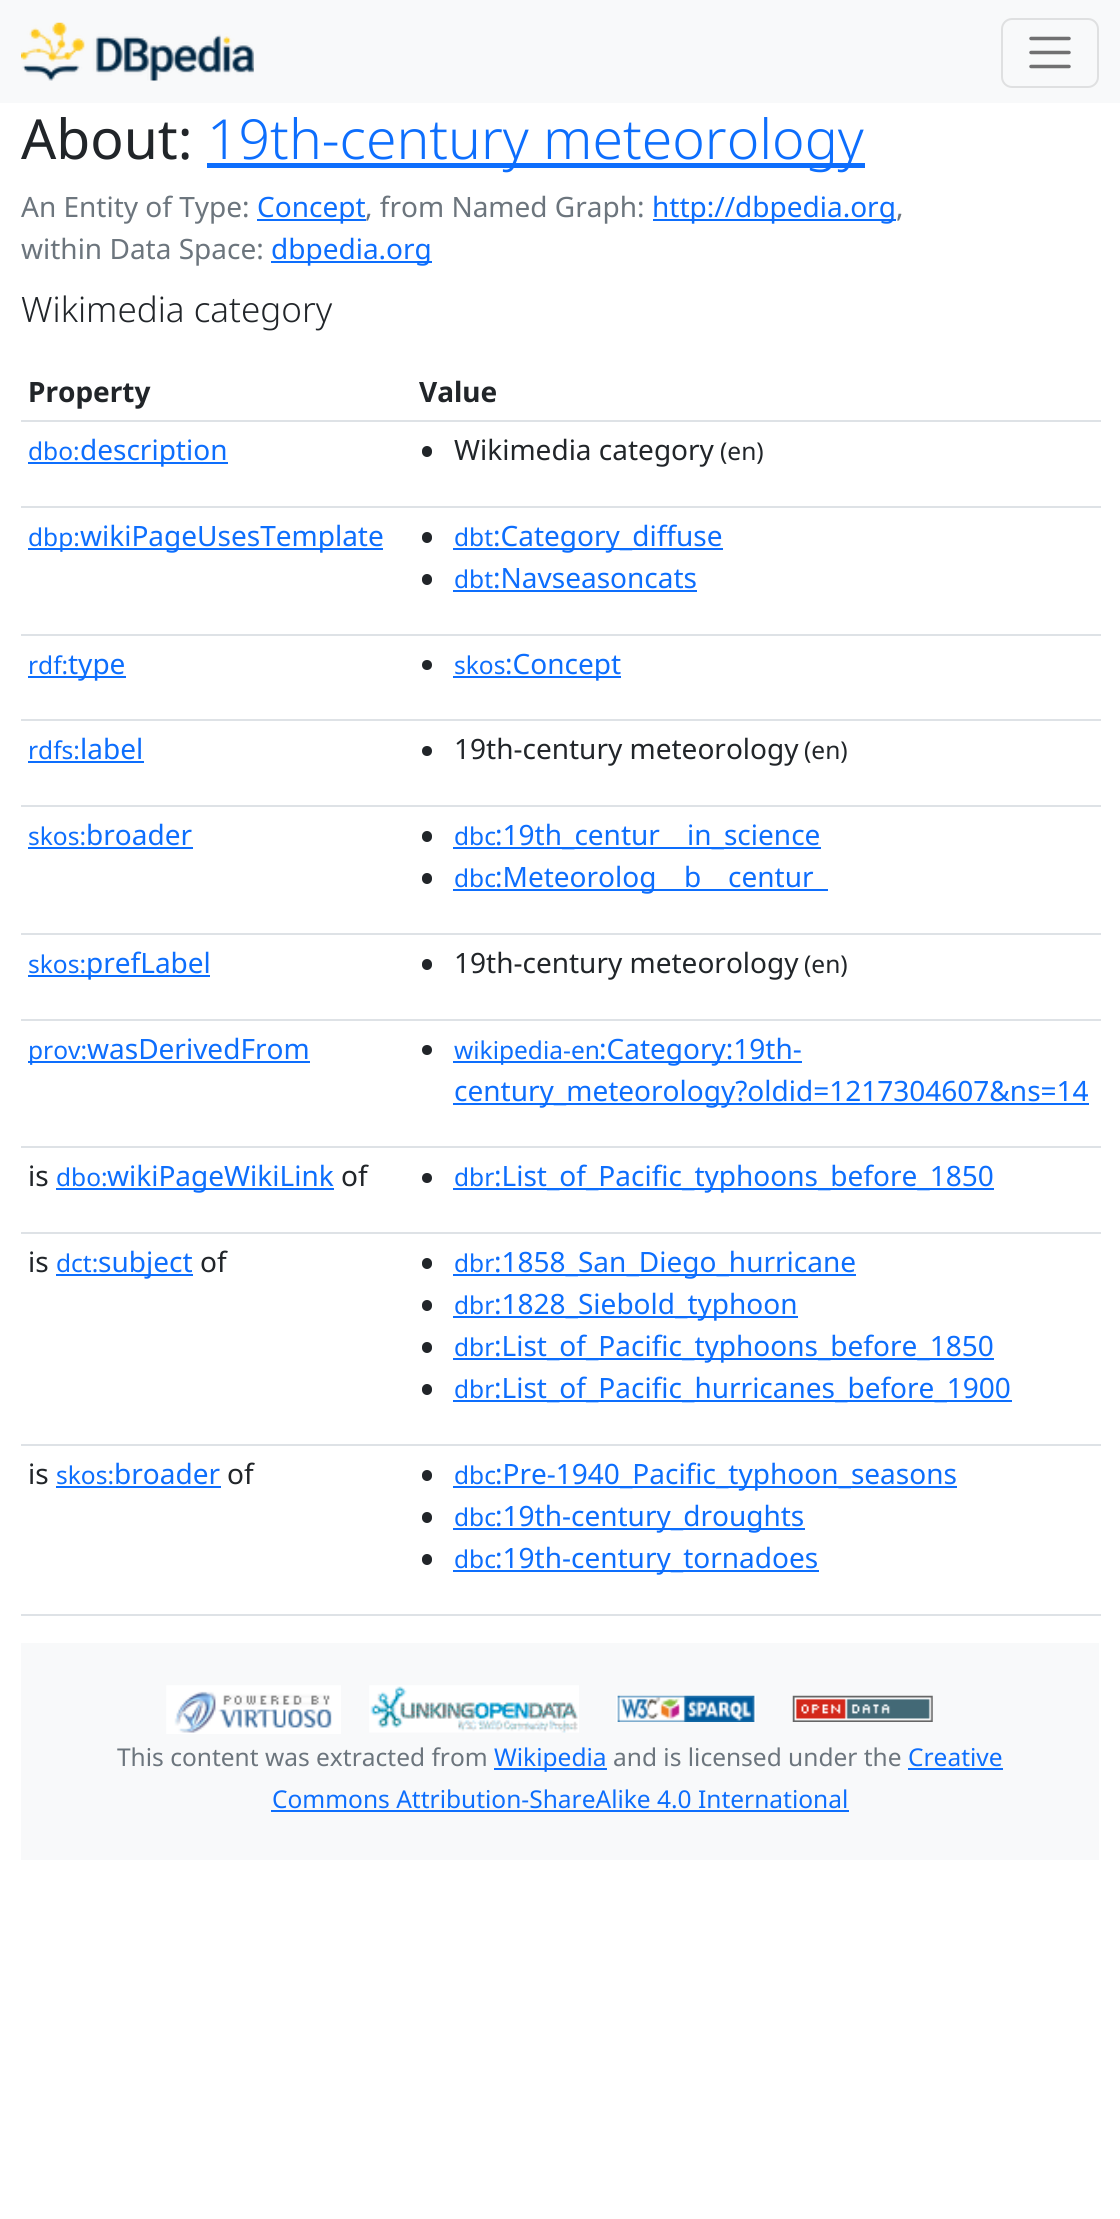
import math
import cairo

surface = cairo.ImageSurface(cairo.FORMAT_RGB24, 1120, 2219)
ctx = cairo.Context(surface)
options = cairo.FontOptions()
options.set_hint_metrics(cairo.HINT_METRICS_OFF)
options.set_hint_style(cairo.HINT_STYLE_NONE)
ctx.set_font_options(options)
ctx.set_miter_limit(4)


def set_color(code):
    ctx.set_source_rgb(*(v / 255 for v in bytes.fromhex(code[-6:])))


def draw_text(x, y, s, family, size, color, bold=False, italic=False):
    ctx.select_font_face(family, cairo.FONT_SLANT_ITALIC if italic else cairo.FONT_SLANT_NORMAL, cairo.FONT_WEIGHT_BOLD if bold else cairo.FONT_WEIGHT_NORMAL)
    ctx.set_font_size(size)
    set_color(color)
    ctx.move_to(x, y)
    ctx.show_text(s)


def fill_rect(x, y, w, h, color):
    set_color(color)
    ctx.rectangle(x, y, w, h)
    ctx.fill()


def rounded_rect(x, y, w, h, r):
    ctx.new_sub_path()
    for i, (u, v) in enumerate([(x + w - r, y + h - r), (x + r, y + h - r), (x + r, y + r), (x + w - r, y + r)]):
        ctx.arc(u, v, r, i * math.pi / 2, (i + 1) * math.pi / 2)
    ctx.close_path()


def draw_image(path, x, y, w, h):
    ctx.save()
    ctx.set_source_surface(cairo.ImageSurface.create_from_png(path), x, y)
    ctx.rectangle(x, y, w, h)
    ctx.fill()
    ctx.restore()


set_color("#ffffff")
ctx.paint()
fill_rect(0, 0, 1120, 103, "#f8f9fa")
draw_image("assets/img1.png", 21, 22, 233, 59)
rounded_rect(1002, 19, 96, 68, 10)
set_color("#dfe0e1")
ctx.stroke()
ctx.new_path()
ctx.move_to(1031, 38.5)
ctx.line_to(1069, 38.5)
ctx.move_to(1031, 52.5)
ctx.line_to(1069, 52.5)
ctx.move_to(1031, 66.5)
ctx.line_to(1069, 66.5)
set_color("#707071")
ctx.set_line_width(3.5)
ctx.set_line_cap(cairo.LINE_CAP_ROUND)
ctx.stroke()
draw_text(21, 159, "About:", "Noto Sans", 55.25, "#212529")
fill_rect(207, 163, 658, 5, "#0d6efd")
draw_text(207, 159, "19th-century meteorology", "Noto Sans Light", 55.25, "#0d6efd")
draw_text(21, 217, "An Entity of Type:", "Noto Sans", 28, "#6c757d")
fill_rect(257, 219, 109, 2, "#0d6efd")
draw_text(257, 217, "Concept", "Noto Sans", 28, "#0d6efd")
draw_text(365, 217, ", from Named Graph:", "Noto Sans", 28, "#6c757d")
fill_rect(653, 219, 243, 2, "#0d6efd")
draw_text(652, 217, "http://dbpedia.org", "Noto Sans", 28, "#0d6efd")
draw_text(896, 217, ",", "Noto Sans", 28, "#6c757d")
draw_text(21, 259, "within Data Space:", "Noto Sans", 28, "#6c757d")
fill_rect(271, 261, 161, 2, "#0d6efd")
draw_text(271, 259, "dbpedia.org", "Noto Sans", 28, "#0d6efd")
draw_text(21, 322, "Wikimedia category", "Noto Sans Light", 35, "#212529")
draw_text(28, 402, "Property", "Noto Sans", 28, "#212529", bold=True)
fill_rect(21, 420, 1080, 2, "#dee2e6")
draw_text(419, 402, "Value", "Noto Sans", 28, "#212529", bold=True)
draw_text(28, 460, "dbo:", "Noto Sans", 24.5, "#0d6efd")
fill_rect(28, 462, 200, 2, "#0d6efd")
draw_text(80, 460, "description", "Noto Sans", 28, "#0d6efd")
fill_rect(21, 506, 1080, 2, "#dee2e6")
set_color("#212529")
rounded_rect(422, 446, 10, 11, 5)
ctx.fill()
draw_text(454, 460, "Wikimedia category", "Noto Sans", 28, "#212529")
draw_text(720, 460, "(en)", "Noto Sans", 24.5, "#212529")
fill_rect(28, 548, 355, 2, "#0d6efd")
draw_text(28, 546, "dbp:", "Noto Sans", 24.5, "#0d6efd")
draw_text(80, 546, "wikiPageUsesTemplate", "Noto Sans", 28, "#0d6efd")
fill_rect(21, 634, 1080, 2, "#dee2e6")
set_color("#212529")
rounded_rect(422, 532, 10, 11, 5)
ctx.fill()
draw_text(454, 546, "dbt", "Noto Sans", 24.5, "#0d6efd")
fill_rect(453, 548, 270, 2, "#0d6efd")
draw_text(493, 546, ":Category_diffuse", "Noto Sans", 28, "#0d6efd")
set_color("#212529")
rounded_rect(422, 574, 10, 11, 5)
ctx.fill()
draw_text(454, 588, "dbt", "Noto Sans", 24.5, "#0d6efd")
fill_rect(453, 590, 244, 2, "#0d6efd")
draw_text(493, 588, ":Navseasoncats", "Noto Sans", 28, "#0d6efd")
draw_text(28, 674, "rdf:", "Noto Sans", 24.5, "#0d6efd")
fill_rect(28, 676, 98, 2, "#0d6efd")
draw_text(68, 674, "type", "Noto Sans", 28, "#0d6efd")
fill_rect(21, 719, 1080, 2, "#dee2e6")
set_color("#212529")
ctx.new_path()
ctx.arc(427, 665, 5, 0, 2 * math.pi)
ctx.fill()
draw_text(454, 674, "skos", "Noto Sans", 24.5, "#0d6efd")
fill_rect(453, 676, 168, 2, "#0d6efd")
draw_text(505, 674, ":Concept", "Noto Sans", 28, "#0d6efd")
draw_text(28, 759, "rdfs:", "Noto Sans", 24.5, "#0d6efd")
fill_rect(28, 761, 116, 2, "#0d6efd")
draw_text(80, 759, "label", "Noto Sans", 28, "#0d6efd")
fill_rect(21, 805, 1080, 2, "#dee2e6")
set_color("#212529")
ctx.new_path()
ctx.arc(427, 751, 5, 0, 2 * math.pi)
ctx.fill()
draw_text(454, 759, "19th-century meteorology", "Noto Sans", 28, "#212529")
draw_text(804, 759, "(en)", "Noto Sans", 24.5, "#212529")
draw_text(28, 845, "skos:", "Noto Sans", 24.5, "#0d6efd")
fill_rect(28, 847, 165, 2, "#0d6efd")
draw_text(86, 845, "broader", "Noto Sans", 28, "#0d6efd")
fill_rect(21, 933, 1080, 2, "#dee2e6")
set_color("#212529")
rounded_rect(422, 831, 10, 11, 5)
ctx.fill()
draw_text(454, 845, "dbc", "Noto Sans", 24.5, "#0d6efd")
fill_rect(453, 847, 368, 2, "#0d6efd")
draw_text(495, 845, ":19th_centur", "Noto Sans", 28, "#0d6efd")
draw_text(687, 845, "in_science", "Noto Sans", 28, "#0d6efd")
set_color("#212529")
rounded_rect(422, 873, 10, 11, 5)
ctx.fill()
draw_text(454, 887, "dbc", "Noto Sans", 24.5, "#0d6efd")
fill_rect(453, 889, 375, 2, "#0d6efd")
draw_text(495, 887, ":Meteorolog", "Noto Sans", 28, "#0d6efd")
draw_text(684, 887, "b", "Noto Sans", 28, "#0d6efd")
draw_text(728, 887, "centur", "Noto Sans", 28, "#0d6efd")
draw_text(28, 973, "skos:", "Noto Sans", 24.5, "#0d6efd")
fill_rect(28, 975, 182, 2, "#0d6efd")
draw_text(86, 973, "prefLabel", "Noto Sans", 28, "#0d6efd")
fill_rect(21, 1019, 1080, 2, "#dee2e6")
set_color("#212529")
rounded_rect(422, 959, 10, 11, 5)
ctx.fill()
draw_text(454, 973, "19th-century meteorology", "Noto Sans", 28, "#212529")
draw_text(804, 973, "(en)", "Noto Sans", 24.5, "#212529")
fill_rect(28, 1061, 282, 2, "#0d6efd")
draw_text(28, 1059, "prov:", "Noto Sans", 24.5, "#0d6efd")
draw_text(87, 1059, "wasDerivedFrom", "Noto Sans", 28, "#0d6efd")
fill_rect(21, 1146, 1080, 2, "#dee2e6")
set_color("#212529")
ctx.new_path()
ctx.arc(427, 1050, 5, 0, 2 * math.pi)
ctx.fill()
fill_rect(453, 1061, 349, 2, "#0d6efd")
draw_text(454, 1059, "wikipedia-en", "Noto Sans", 24.5, "#0d6efd")
draw_text(599, 1059, ":Category:19th-", "Noto Sans", 28, "#0d6efd")
fill_rect(453, 1103, 636, 2, "#0d6efd")
draw_text(454, 1101, "century_meteorology?oldid=1217304607&ns=14", "Noto Sans", 28, "#0d6efd")
draw_text(28, 1186, "is", "Noto Sans", 28, "#212529")
draw_text(56, 1186, "dbo:", "Noto Sans", 24.5, "#0d6efd")
fill_rect(56, 1188, 278, 2, "#0d6efd")
draw_text(107, 1186, "wikiPageWikiLink", "Noto Sans", 28, "#0d6efd")
draw_text(341, 1186, "of", "Noto Sans", 28, "#212529")
fill_rect(21, 1232, 1080, 2, "#dee2e6")
set_color("#212529")
ctx.new_path()
ctx.arc(427, 1178, 5, 0, 2 * math.pi)
ctx.fill()
draw_text(454, 1186, "dbr", "Noto Sans", 24.5, "#0d6efd")
fill_rect(453, 1188, 541, 2, "#0d6efd")
draw_text(494, 1186, ":List_of_Pacific_typhoons_before_1850", "Noto Sans", 28, "#0d6efd")
draw_text(28, 1272, "is", "Noto Sans", 28, "#212529")
draw_text(56, 1272, "dct:", "Noto Sans", 24.5, "#0d6efd")
fill_rect(56, 1274, 137, 2, "#0d6efd")
draw_text(98, 1272, "subject", "Noto Sans", 28, "#0d6efd")
draw_text(200, 1272, "of", "Noto Sans", 28, "#212529")
fill_rect(21, 1444, 1080, 2, "#dee2e6")
set_color("#212529")
rounded_rect(422, 1258, 10, 11, 5)
ctx.fill()
draw_text(454, 1272, "dbr", "Noto Sans", 24.5, "#0d6efd")
fill_rect(453, 1274, 403, 2, "#0d6efd")
draw_text(494, 1272, ":1858_San_Diego_hurricane", "Noto Sans", 28, "#0d6efd")
set_color("#212529")
rounded_rect(422, 1300, 10, 11, 5)
ctx.fill()
draw_text(454, 1314, "dbr", "Noto Sans", 24.5, "#0d6efd")
fill_rect(453, 1316, 345, 2, "#0d6efd")
draw_text(494, 1314, ":1828_Siebold_typhoon", "Noto Sans", 28, "#0d6efd")
set_color("#212529")
rounded_rect(422, 1342, 10, 11, 5)
ctx.fill()
draw_text(454, 1356, "dbr", "Noto Sans", 24.5, "#0d6efd")
fill_rect(453, 1358, 541, 2, "#0d6efd")
draw_text(494, 1356, ":List_of_Pacific_typhoons_before_1850", "Noto Sans", 28, "#0d6efd")
set_color("#212529")
rounded_rect(422, 1384, 10, 11, 5)
ctx.fill()
draw_text(454, 1398, "dbr", "Noto Sans", 24.5, "#0d6efd")
fill_rect(453, 1400, 559, 2, "#0d6efd")
draw_text(494, 1398, ":List_of_Pacific_hurricanes_before_1900", "Noto Sans", 28, "#0d6efd")
draw_text(28, 1484, "is", "Noto Sans", 28, "#212529")
draw_text(56, 1484, "skos:", "Noto Sans", 24.5, "#0d6efd")
fill_rect(56, 1486, 165, 2, "#0d6efd")
draw_text(114, 1484, "broader", "Noto Sans", 28, "#0d6efd")
draw_text(227, 1484, "of", "Noto Sans", 28, "#212529")
fill_rect(21, 1614, 1080, 2, "#dee2e6")
set_color("#212529")
rounded_rect(422, 1470, 10, 11, 5)
ctx.fill()
draw_text(454, 1484, "dbc", "Noto Sans", 24.5, "#0d6efd")
fill_rect(453, 1486, 504, 2, "#0d6efd")
draw_text(495, 1484, ":Pre-1940_Pacific_typhoon_seasons", "Noto Sans", 28, "#0d6efd")
set_color("#212529")
rounded_rect(422, 1512, 10, 11, 5)
ctx.fill()
draw_text(454, 1526, "dbc", "Noto Sans", 24.5, "#0d6efd")
fill_rect(453, 1528, 352, 2, "#0d6efd")
draw_text(495, 1526, ":19th-century_droughts", "Noto Sans", 28, "#0d6efd")
set_color("#212529")
rounded_rect(422, 1554, 10, 11, 5)
ctx.fill()
draw_text(454, 1568, "dbc", "Noto Sans", 24.5, "#0d6efd")
fill_rect(453, 1570, 366, 2, "#0d6efd")
draw_text(495, 1568, ":19th-century_tornadoes", "Noto Sans", 28, "#0d6efd")
fill_rect(21, 1643, 1078, 217, "#f8f9fa")
draw_image("assets/img2.png", 166, 1685, 175, 49)
draw_image("assets/img3.png", 369, 1685, 210, 48)
draw_image("assets/img4.png", 616, 1695, 140, 27)
draw_image("assets/img5.png", 792, 1695, 141, 27)
draw_text(117, 1766, "This content was extracted from", "Noto Sans", 24.5, "#6c757d")
fill_rect(494, 1768, 113, 2, "#0d6efd")
draw_text(494, 1766, "Wikipedia", "Noto Sans", 24.5, "#0d6efd")
draw_text(613, 1766, "and is licensed under the", "Noto Sans", 24.5, "#6c757d")
draw_text(908, 1766, "Creative", "Noto Sans", 24.5, "#0d6efd")
fill_rect(908, 1768, 95, 2, "#0d6efd")
draw_text(272, 1808, "Commons Attribution-ShareAlike 4.0 International", "Noto Sans", 24.5, "#0d6efd")
fill_rect(271, 1810, 578, 2, "#0d6efd")
surface.write_to_png("output.png")
